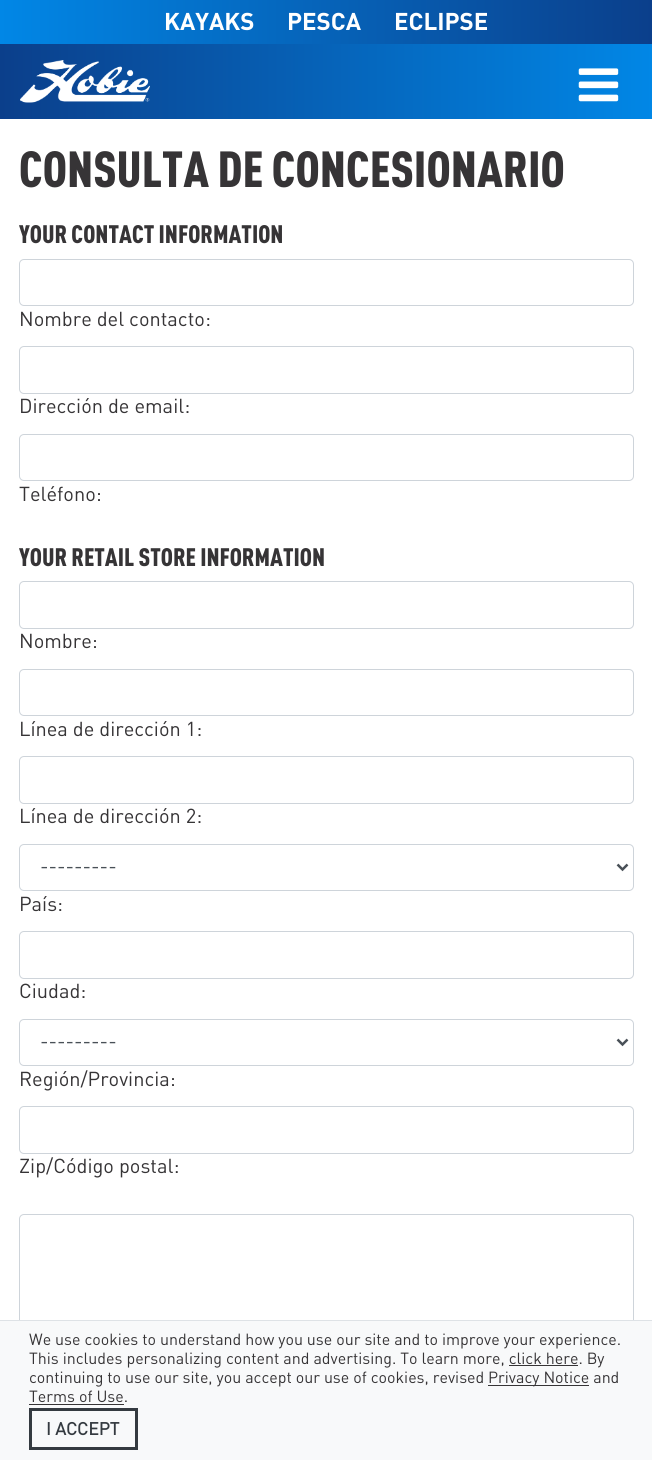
import math
import cairo

surface = cairo.ImageSurface(cairo.FORMAT_RGB24, 652, 1460)
ctx = cairo.Context(surface)
options = cairo.FontOptions()
options.set_hint_metrics(cairo.HINT_METRICS_OFF)
options.set_hint_style(cairo.HINT_STYLE_NONE)
ctx.set_font_options(options)
ctx.set_miter_limit(4)


def set_color(code):
    ctx.set_source_rgb(*(v / 255 for v in bytes.fromhex(code[-6:])))


def draw_text(x, y, s, family, size, color, bold=False, italic=False):
    ctx.select_font_face(family, cairo.FONT_SLANT_ITALIC if italic else cairo.FONT_SLANT_NORMAL, cairo.FONT_WEIGHT_BOLD if bold else cairo.FONT_WEIGHT_NORMAL)
    ctx.set_font_size(size)
    set_color(color)
    ctx.move_to(x, y)
    ctx.show_text(s)


def fill_rect(x, y, w, h, color):
    set_color(color)
    ctx.rectangle(x, y, w, h)
    ctx.fill()


def rounded_rect(x, y, w, h, r):
    ctx.new_sub_path()
    for i, (u, v) in enumerate([(x + w - r, y + h - r), (x + r, y + h - r), (x + r, y + r), (x + w - r, y + r)]):
        ctx.arc(u, v, r, i * math.pi / 2, (i + 1) * math.pi / 2)
    ctx.close_path()


def draw_image(path, x, y, w, h):
    ctx.save()
    ctx.set_source_surface(cairo.ImageSurface.create_from_png(path), x, y)
    ctx.rectangle(x, y, w, h)
    ctx.fill()
    ctx.restore()


set_color("#ffffff")
ctx.paint()
gradient = cairo.LinearGradient(0, 59, 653, 59)
gradient.add_color_stop_rgba(0, 0.043, 0.247, 0.545, 1)
gradient.add_color_stop_rgba(1, 0.004, 0.529, 0.902, 1)
ctx.set_source(gradient)
ctx.rectangle(0, 44, 652, 75)
ctx.fill()
gradient = cairo.LinearGradient(0, 22, 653, 22)
gradient.add_color_stop_rgba(0, 0.004, 0.529, 0.902, 1)
gradient.add_color_stop_rgba(1, 0.043, 0.247, 0.545, 1)
ctx.set_source(gradient)
ctx.rectangle(0, 0, 652, 44)
ctx.fill()
draw_text(164, 30, "KAYAKS", "DIN", 24, "#ffffff", bold=True)
draw_text(287, 30, "PESCA", "DIN", 24, "#ffffff", bold=True)
draw_text(394, 30, "ECLIPSE", "DIN", 24, "#ffffff", bold=True)
draw_image("assets/img1.png", 20, 60, 130, 43)
draw_image("assets/img2.png", 578, 68, 41, 34)
draw_text(19, 187, "CONSULTA DE CONCESIONARIO", "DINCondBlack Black", 50, "#363436")
draw_text(19, 243, "YOUR CONTACT INFORMATION", "DINCondBlack Black", 25, "#363436")
rounded_rect(19.5, 259.5, 614, 46, 4.5)
set_color("#ced4da")
ctx.set_line_width(1)
ctx.stroke()
draw_text(19, 326, "Nombre del contacto:", "DIN", 20, "#363436")
rounded_rect(19.5, 346.5, 614, 47, 4.5)
set_color("#ced4da")
ctx.stroke()
draw_text(19, 413, "Dirección de email:", "DIN", 20, "#363436")
rounded_rect(19.5, 434.5, 614, 46, 4.5)
set_color("#ced4da")
ctx.stroke()
draw_text(19, 501, "Teléfono:", "DIN", 20, "#363436")
draw_text(19, 566, "YOUR RETAIL STORE INFORMATION", "DINCondBlack Black", 25, "#363436")
rounded_rect(19.5, 581.5, 614, 47, 4.5)
set_color("#ced4da")
ctx.stroke()
draw_text(19, 648, "Nombre:", "DIN", 20, "#363436")
rounded_rect(19.5, 669.5, 614, 46, 4.5)
set_color("#ced4da")
ctx.stroke()
draw_text(19, 736, "Línea de dirección 1:", "DIN", 20, "#363436")
rounded_rect(19.5, 756.5, 614, 47, 4.5)
set_color("#ced4da")
ctx.stroke()
draw_text(19, 823, "Línea de dirección 2:", "DIN", 20, "#363436")
rounded_rect(19.5, 844.5, 614, 46, 4.5)
set_color("#ced4da")
ctx.stroke()
ctx.new_path()
ctx.move_to(617.5, 864.5)
ctx.line_to(622.5, 869.5)
ctx.line_to(627.5, 864.5)
set_color("#495057")
ctx.set_line_width(2.5)
ctx.stroke()
draw_text(40, 873, "---------", "DIN", 20, "#495057")
draw_text(19, 911, "País:", "DIN", 20, "#363436")
rounded_rect(19.5, 931.5, 614, 47, 4.5)
set_color("#ced4da")
ctx.set_line_width(1)
ctx.stroke()
draw_text(19, 998, "Ciudad:", "DIN", 20, "#363436")
rounded_rect(19.5, 1019.5, 614, 46, 4.5)
set_color("#ced4da")
ctx.stroke()
ctx.new_path()
ctx.move_to(617.5, 1039.5)
ctx.line_to(622.5, 1044.5)
ctx.line_to(627.5, 1039.5)
set_color("#495057")
ctx.set_line_width(2.5)
ctx.stroke()
draw_text(40, 1048, "---------", "DIN", 20, "#495057")
draw_text(19, 1086, "Región/Provincia:", "DIN", 20, "#363436")
rounded_rect(19.5, 1106.5, 614, 47, 4.5)
set_color("#ced4da")
ctx.set_line_width(1)
ctx.stroke()
draw_text(19, 1173, "Zip/Código postal:", "DIN", 20, "#363436")
rounded_rect(19.5, 1214.5, 614, 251, 4.5)
set_color("#ced4da")
ctx.stroke()
fill_rect(0, 1321, 652, 139, "#f8f9fa")
fill_rect(0, 1320, 652, 1, "#dee2e6")
draw_text(29, 1345, "We use cookies to understand how you use our site and to improve your experience.", "DIN", 16, "#363436")
draw_text(29, 1364, "This includes personalizing content and advertising. To learn more, click here. By", "DIN", 16, "#363436")
fill_rect(509, 1365, 69, 1, "#363436")
draw_text(29, 1383, "continuing to use our site, you accept our use of cookies, revised", "DIN", 16, "#363436")
fill_rect(488, 1385, 101, 1, "#363436")
draw_text(488, 1383, "Privacy Notice and", "DIN", 16, "#363436")
draw_text(29, 1402, "Terms of Use.", "DIN", 16, "#363436")
fill_rect(29, 1404, 95, 1, "#363436")
ctx.rectangle(30.5, 1409.5, 106, 39)
set_color("#343a40")
ctx.set_line_width(3)
ctx.stroke()
draw_text(46, 1435, "I ACCEPT", "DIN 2", 17.5, "#343a40", bold=True)
surface.write_to_png("output.png")
